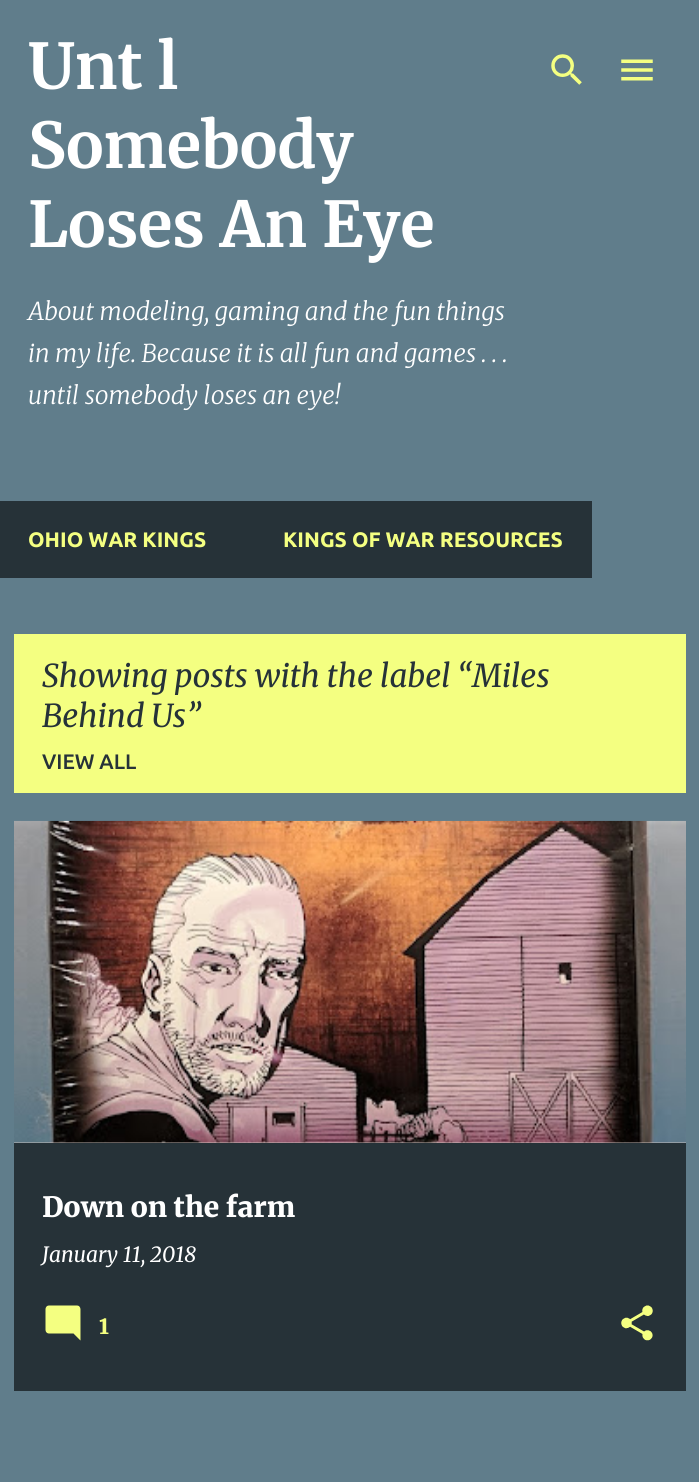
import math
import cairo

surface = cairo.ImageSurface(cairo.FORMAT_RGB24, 699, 1482)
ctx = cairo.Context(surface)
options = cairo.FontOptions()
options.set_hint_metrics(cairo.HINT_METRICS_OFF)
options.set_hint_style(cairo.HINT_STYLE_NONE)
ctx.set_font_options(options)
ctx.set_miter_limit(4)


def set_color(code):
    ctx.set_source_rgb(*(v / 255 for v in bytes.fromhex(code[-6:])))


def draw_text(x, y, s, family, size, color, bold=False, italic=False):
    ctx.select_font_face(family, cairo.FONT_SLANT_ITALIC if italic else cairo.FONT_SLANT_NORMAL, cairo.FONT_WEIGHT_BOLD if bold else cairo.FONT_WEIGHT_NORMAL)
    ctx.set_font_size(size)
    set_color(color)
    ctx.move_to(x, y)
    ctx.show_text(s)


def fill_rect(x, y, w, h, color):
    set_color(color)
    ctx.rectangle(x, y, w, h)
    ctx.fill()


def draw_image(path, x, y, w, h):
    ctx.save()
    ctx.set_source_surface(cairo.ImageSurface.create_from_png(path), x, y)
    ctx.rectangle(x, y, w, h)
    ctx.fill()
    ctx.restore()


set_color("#607d8b")
ctx.paint()
draw_text(28, 89, "Unt l", "Merriweather", 63, "#ffffff", bold=True)
draw_text(28, 168, "Somebody", "Merriweather", 63, "#ffffff", bold=True)
draw_text(28, 247, "Loses An Eye", "Merriweather", 63, "#ffffff", bold=True)
draw_text(28, 320, "About modeling, gaming and the fun things", "Merriweather Light", 24.5, "#ffffff", italic=True)
draw_text(28, 362, "in my life. Because it is all fun and games . . .", "Merriweather Light", 24.5, "#ffffff", italic=True)
draw_text(28, 404, "until somebody loses an eye!", "Merriweather Light", 24.5, "#ffffff", italic=True)
draw_image("assets/img1.png", 551, 54, 31, 31)
draw_image("assets/img2.png", 621, 59, 32, 22)
fill_rect(0, 501, 592, 77, "#263238")
draw_text(28, 547, "OHIO WAR KINGS", "Ubuntu", 21, "#f4ff81", bold=True)
draw_text(283, 547, "KINGS OF WAR RESOURCES", "Ubuntu", 21, "#f4ff81", bold=True)
fill_rect(14, 634, 672, 159, "#f4ff81")
draw_text(42, 687, "Showing posts with the label “Miles", "Merriweather", 31.5, "#263238", italic=True)
draw_text(42, 727, "Behind Us”", "Merriweather", 31.5, "#263238", italic=True)
draw_text(42, 769, "VIEW ALL", "Ubuntu Medium", 21, "#263238")
fill_rect(14, 1143, 672, 248, "#263238")
fill_rect(14, 1142, 672, 1, "#d9cdc7")
draw_image("assets/img3.png", 14, 820, 672, 323)
draw_text(42, 1217, "Down on the farm", "Merriweather Black", 28, "#ffffff")
draw_text(42, 1262, "January 11, 2018", "Merriweather", 21, "#ffffff", italic=True)
draw_image("assets/img4.png", 45, 1305, 36, 36)
draw_text(99, 1334, "1", "Merriweather Black", 21, "#f4ff81")
draw_image("assets/img5.png", 621, 1305, 32, 36)
surface.write_to_png("output.png")
